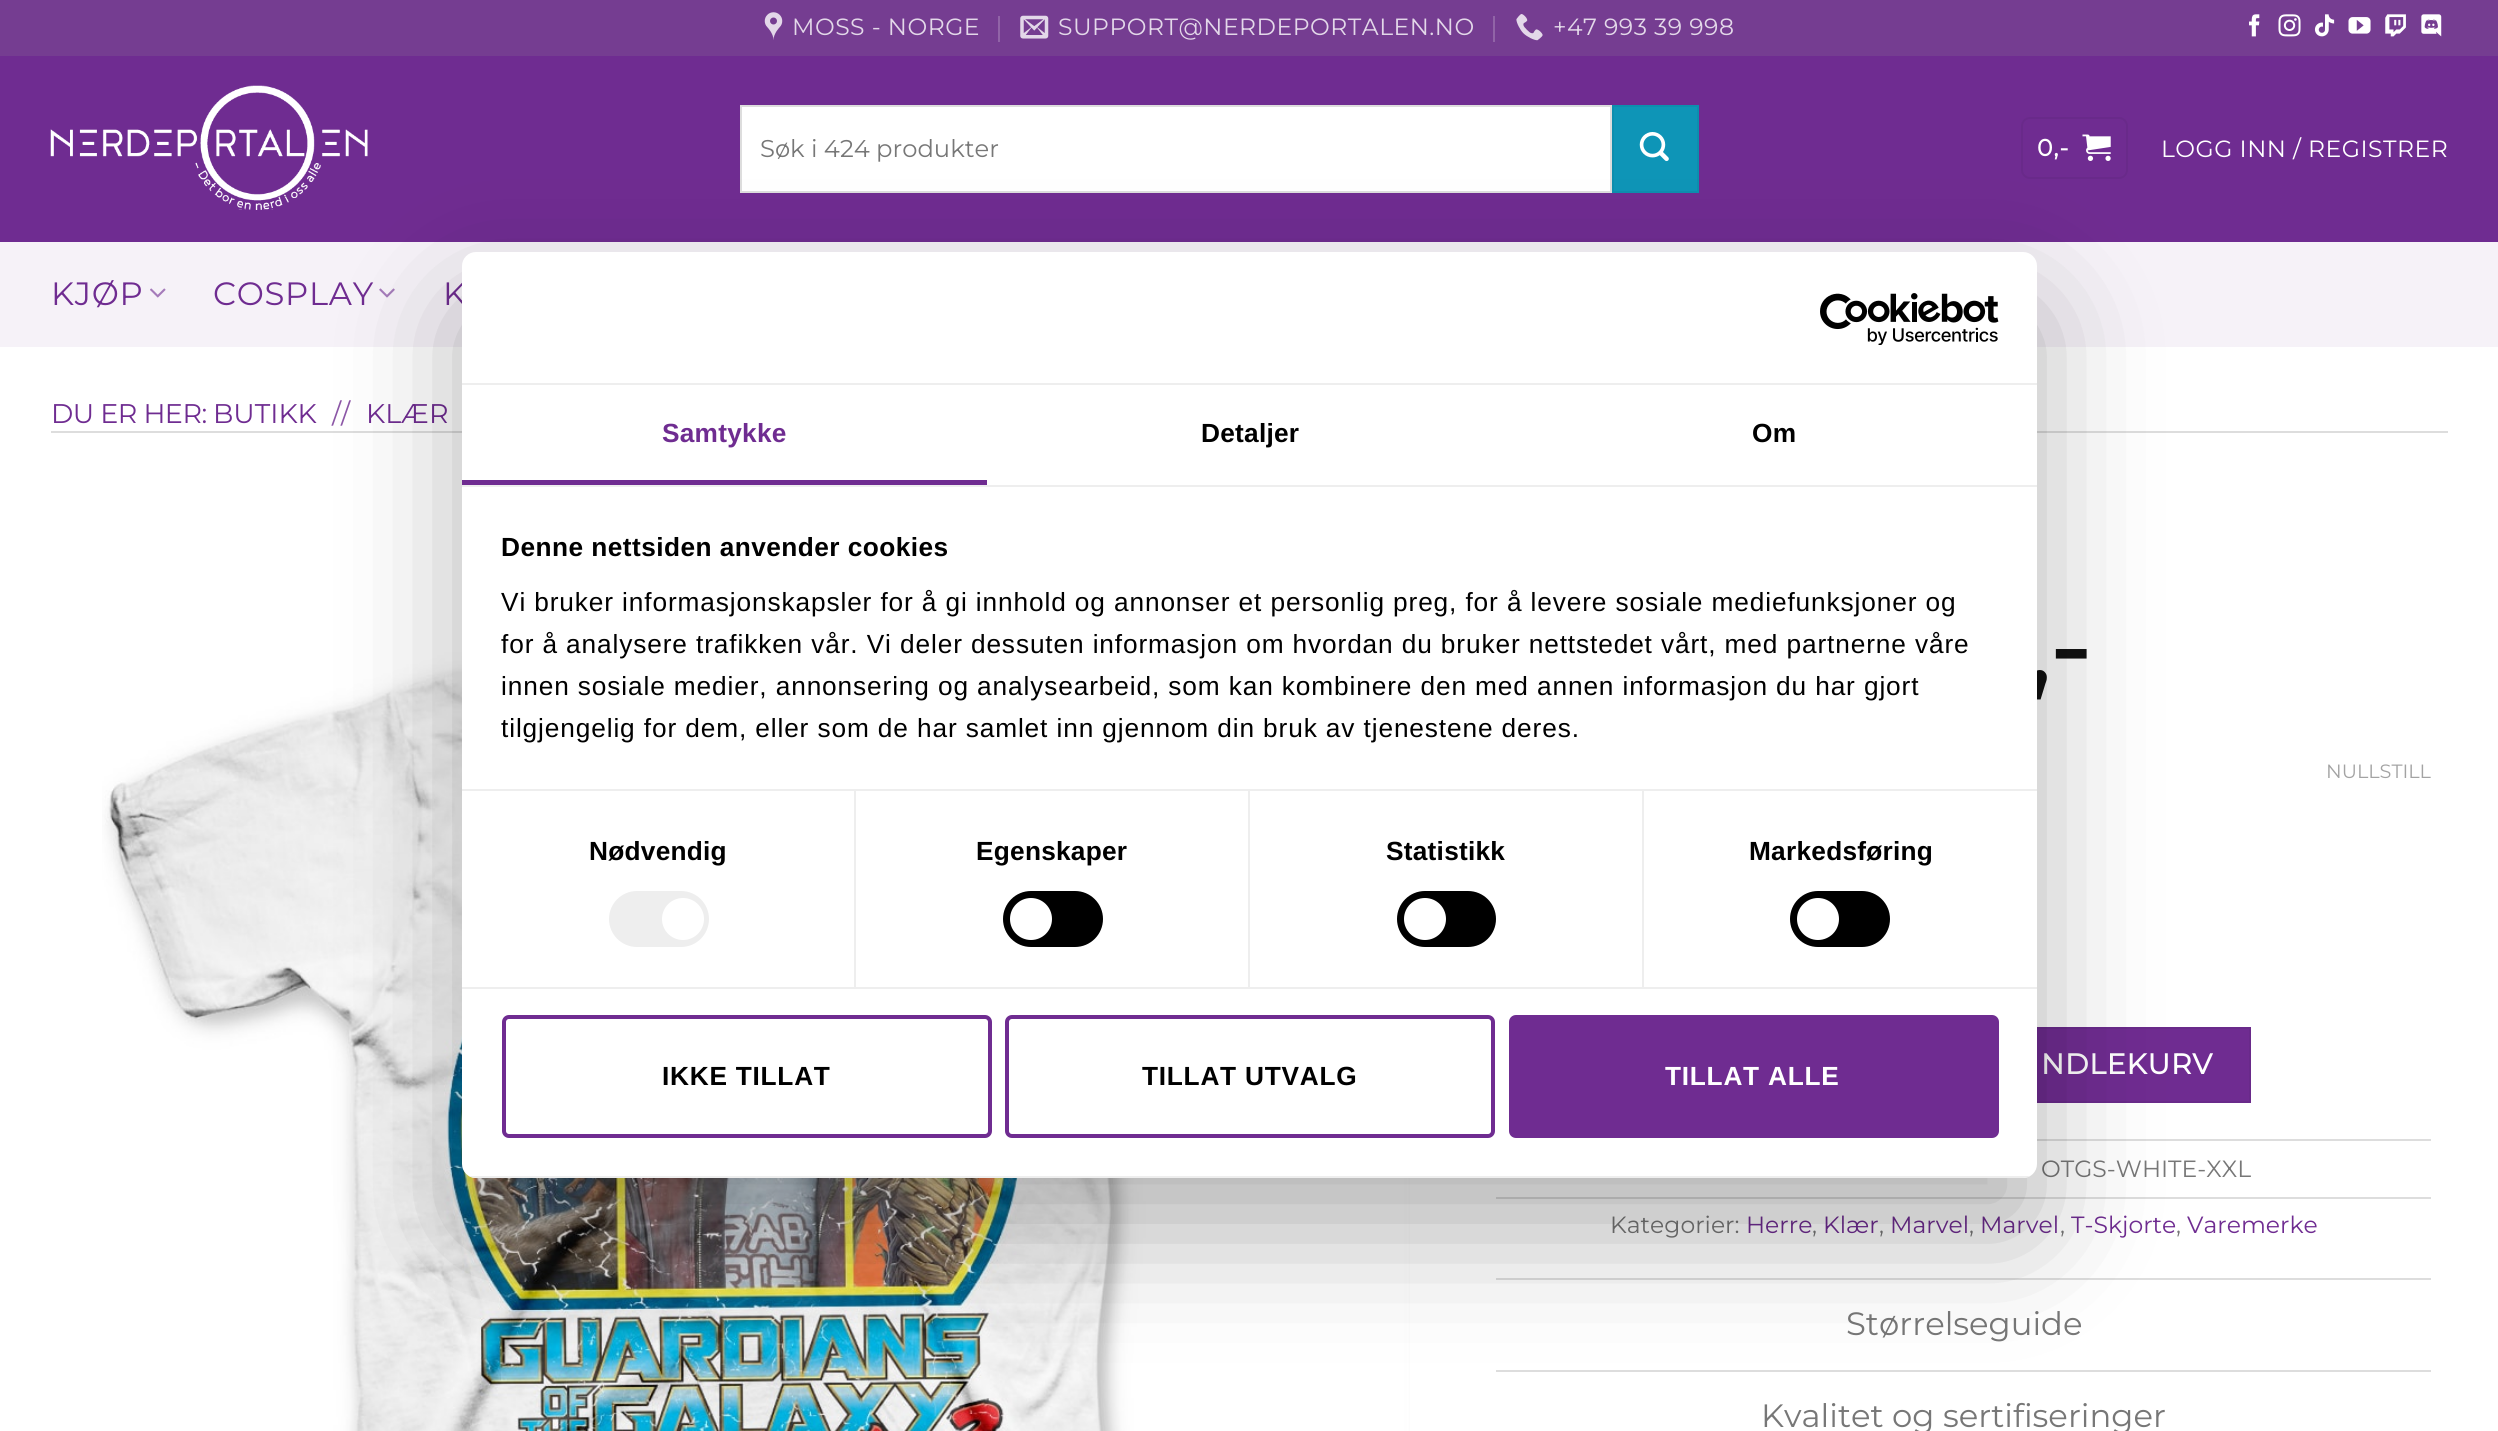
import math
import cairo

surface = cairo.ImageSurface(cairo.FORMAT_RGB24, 2498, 1431)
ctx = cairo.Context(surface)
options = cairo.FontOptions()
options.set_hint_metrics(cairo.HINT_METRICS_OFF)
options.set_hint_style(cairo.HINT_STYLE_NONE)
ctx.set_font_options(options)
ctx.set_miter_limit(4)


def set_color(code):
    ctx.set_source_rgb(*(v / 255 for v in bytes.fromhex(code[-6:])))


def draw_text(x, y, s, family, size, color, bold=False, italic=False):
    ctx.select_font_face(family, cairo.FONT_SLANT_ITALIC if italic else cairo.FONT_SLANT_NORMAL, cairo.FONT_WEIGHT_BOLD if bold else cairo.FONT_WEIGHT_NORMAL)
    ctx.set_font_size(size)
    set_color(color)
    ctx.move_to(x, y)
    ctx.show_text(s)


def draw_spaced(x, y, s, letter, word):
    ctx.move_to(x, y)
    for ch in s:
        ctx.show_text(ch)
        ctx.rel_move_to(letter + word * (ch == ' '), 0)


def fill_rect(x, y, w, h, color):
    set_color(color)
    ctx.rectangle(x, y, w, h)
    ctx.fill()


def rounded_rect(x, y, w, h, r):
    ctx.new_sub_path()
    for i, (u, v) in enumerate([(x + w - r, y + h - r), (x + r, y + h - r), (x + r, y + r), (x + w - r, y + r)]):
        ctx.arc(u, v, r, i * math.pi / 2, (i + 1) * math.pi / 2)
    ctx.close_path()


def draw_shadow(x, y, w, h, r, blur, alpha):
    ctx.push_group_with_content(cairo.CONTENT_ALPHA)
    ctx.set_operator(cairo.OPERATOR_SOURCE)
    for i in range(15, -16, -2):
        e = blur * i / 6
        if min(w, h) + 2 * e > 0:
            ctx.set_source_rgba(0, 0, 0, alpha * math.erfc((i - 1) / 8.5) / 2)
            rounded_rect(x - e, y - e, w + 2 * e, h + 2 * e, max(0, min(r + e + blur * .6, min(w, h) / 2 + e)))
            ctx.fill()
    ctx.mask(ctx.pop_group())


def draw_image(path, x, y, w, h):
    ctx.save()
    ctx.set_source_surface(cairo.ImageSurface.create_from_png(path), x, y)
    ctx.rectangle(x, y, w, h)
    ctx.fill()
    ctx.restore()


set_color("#ffffff")
ctx.paint()
fill_rect(0, 0, 2498, 56, "#753d91")
draw_image("assets/img1.png", 764, 12, 19, 28)
ctx.select_font_face("Montserrat Thin")
ctx.set_font_size(23.5)
set_color("#e3d8e9")
draw_spaced(792, 35, "MOSS - NORGE", 0.5, 0)
fill_rect(998, 16, 2, 26, "#9164a7")
draw_image("assets/img2.png", 1020, 15, 29, 24)
set_color("#e3d8e9")
draw_spaced(1058, 35, "SUPPORT@NERDEPORTALEN.NO", 0.5, 0)
fill_rect(1493, 16, 2, 26, "#9164a7")
draw_image("assets/img3.png", 1516, 14, 27, 27)
set_color("#e3d8e9")
draw_spaced(1553, 35, "+47 993 39 998", 0.5, 0)
draw_image("assets/img4.png", 2249, 14, 11, 23)
draw_image("assets/img5.png", 2278, 14, 23, 23)
draw_image("assets/img6.png", 2314, 14, 21, 23)
draw_image("assets/img7.png", 2348, 17, 23, 17)
draw_image("assets/img8.png", 2385, 14, 21, 23)
draw_image("assets/img9.png", 2421, 14, 21, 23)
fill_rect(0, 56, 2498, 186, "#6f2c91")
draw_image("assets/img10.png", 50, 85, 318, 125)
set_color("#ffffff")
ctx.rectangle(741, 106, 870, 86)
ctx.fill_preserve()
set_color("#dddddd")
ctx.stroke()
draw_text(760, 157, "Søk i 424 produkter", "Montserrat Thin", 24.25, "#777777")
set_color("#0e95b7")
ctx.rectangle(1613, 106, 85, 86)
ctx.fill_preserve()
set_color("#0d8eae")
ctx.stroke()
draw_image("assets/img11.png", 1639, 132, 30, 30)
rounded_rect(2022, 118, 105, 60, 8)
set_color("#692a8a")
ctx.stroke()
ctx.select_font_face("Montserrat", cairo.FONT_SLANT_NORMAL, cairo.FONT_WEIGHT_BOLD)
ctx.set_font_size(23.5)
set_color("#ffffff")
draw_spaced(2037, 156, "0,-", 1, 0)
draw_image("assets/img12.png", 2082, 134, 29, 27)
ctx.select_font_face("Montserrat Thin")
draw_spaced(2161, 157, "LOGG INN / REGISTRER", 0.5, 0)
fill_rect(0, 242, 2498, 105, "#f6f2f8")
ctx.set_font_size(32.3)
set_color("#6f2c91")
draw_spaced(51, 305, "KJØP", 0.75, 0)
draw_image("assets/img13.png", 150, 288, 16, 10)
draw_spaced(213, 305, "COSPLAY", 0.75, 0)
draw_image("assets/img14.png", 379, 288, 16, 10)
draw_spaced(443, 305, "K", 0.75, 0)
ctx.set_font_size(27)
draw_spaced(51, 423, "DU ER HER:", -0.5, 0)
draw_text(213, 423, "BUTIKK", "Montserrat Thin", 27, "#6f2c91")
draw_text(332, 423, "//", "Montserrat Thin", 27, "#8c56a7")
draw_text(366, 423, "KLÆR", "Montserrat Thin", 27, "#6f2c91")
fill_rect(51, 431, 2397, 2, "#dddddd")
draw_image("assets/img15.png", 102, 594, 1308, 837)
draw_text(2027, 684, ",-", "Montserrat", 106, "#111111", bold=True)
draw_text(2326, 778, "NULLSTILL", "Montserrat Thin", 19.25, "#a3a3a3")
fill_rect(2037, 1029, 212, 72, "#6f2c91")
ctx.rectangle(1851, 1028, 399, 74)
set_color("#692a8a")
ctx.stroke()
ctx.select_font_face("Montserrat", cairo.FONT_SLANT_NORMAL, cairo.FONT_WEIGHT_BOLD)
ctx.set_font_size(28.5)
set_color("#ffffff")
draw_spaced(2041, 1074, "NDLEKURV", 0.75, 0)
fill_rect(2037, 1139, 394, 2, "#dddddd")
draw_text(2041, 1177, "OTGS-WHITE-XXL", "Montserrat Thin", 23.5, "#777777")
fill_rect(1496, 1197, 935, 2, "#dddddd")
draw_text(1610, 1233, "Kategorier:", "Montserrat Thin", 23.5, "#777777")
draw_text(1746, 1233, "Herre", "Montserrat Thin", 23.5, "#6f2c91")
draw_text(1812, 1233, ",", "Montserrat Thin", 23.5, "#777777")
draw_text(1823, 1233, "Klær", "Montserrat Thin", 23.5, "#6f2c91")
draw_text(1879, 1233, ",", "Montserrat Thin", 23.5, "#777777")
draw_text(1890, 1233, "Marvel", "Montserrat Thin", 23.5, "#6f2c91")
draw_text(1969, 1233, ",", "Montserrat Thin", 23.5, "#777777")
draw_text(1980, 1233, "Marvel", "Montserrat Thin", 23.5, "#6f2c91")
draw_text(2060, 1233, ",", "Montserrat Thin", 23.5, "#777777")
draw_text(2071, 1233, "T-Skjorte", "Montserrat Thin", 23.5, "#6f2c91")
draw_text(2176, 1233, ",", "Montserrat Thin", 23.5, "#777777")
draw_text(2187, 1233, "Varemerke", "Montserrat Thin", 23.5, "#6f2c91")
fill_rect(1496, 1278, 935, 2, "#dddddd")
draw_text(1846, 1335, "Størrelseguide", "Montserrat Thin", 32.3, "#777777")
fill_rect(1496, 1370, 935, 2, "#dddddd")
draw_text(1761, 1427, "Kvalitet og sertifiseringer", "Montserrat Thin", 32.3, "#777777")
set_color("#000000")
draw_shadow(462, 308, 1575, 926, 14, 59.5, 0.3)
set_color("#ffffff")
rounded_rect(462, 252, 1575, 926, 14)
ctx.fill()
fill_rect(462, 383, 1575, 2, "#eeeeee")
draw_image("assets/img16.png", 1820, 293, 179, 52)
fill_rect(462, 485, 1575, 2, "#eeeeee")
fill_rect(462, 480, 525, 5, "#6f2c91")
ctx.select_font_face("Liberation Sans", cairo.FONT_SLANT_NORMAL, cairo.FONT_WEIGHT_BOLD)
ctx.set_font_size(26.25)
draw_spaced(662, 442, "Samtykke", 0.25, 0)
set_color("#000000")
draw_spaced(1201, 442, "Detaljer", 0.25, 0)
draw_spaced(1752, 442, "Om", 0.25, 0)
fill_rect(462, 789, 1575, 2, "#eeeeee")
set_color("#000000")
draw_spaced(501, 556, "Denne nettsiden anvender cookies", 0.45, 0)
ctx.select_font_face("Liberation Sans")
draw_spaced(501, 611, "Vi bruker informasjonskapsler for å gi innhold og annonser et personlig preg, for å levere sosiale mediefunksjoner og", 0.88, 0)
draw_spaced(501, 653, "for å analysere trafikken vår. Vi deler dessuten informasjon om hvordan du bruker nettstedet vårt, med partnerne våre", 0.88, 0)
draw_spaced(501, 695, "innen sosiale medier, annonsering og analysearbeid, som kan kombinere den med annen informasjon du har gjort", 0.88, 0)
draw_spaced(501, 737, "tilgjengelig for dem, eller som de har samlet inn gjennom din bruk av tjenestene deres.", 0.88, 0)
fill_rect(462, 987, 1575, 2, "#eeeeee")
fill_rect(854, 791, 2, 196, "#eeeeee")
ctx.select_font_face("Liberation Sans", cairo.FONT_SLANT_NORMAL, cairo.FONT_WEIGHT_BOLD)
set_color("#000000")
draw_spaced(589, 860, "Nødvendig", 0.25, 0)
set_color("#eeeeee")
rounded_rect(609, 891, 100, 56, 28)
ctx.fill()
set_color("#ffffff")
ctx.arc(683, 919, 21, 0, 2 * math.pi)
ctx.fill()
fill_rect(1248, 791, 2, 196, "#eeeeee")
set_color("#000000")
draw_spaced(976, 860, "Egenskaper", 0.25, 0)
rounded_rect(1003, 891, 100, 56, 28)
ctx.fill()
set_color("#ffffff")
ctx.arc(1031, 919, 21, 0, 2 * math.pi)
ctx.fill()
fill_rect(1642, 791, 2, 196, "#eeeeee")
set_color("#000000")
draw_spaced(1386, 860, "Statistikk", 0.25, 0)
rounded_rect(1397, 891, 99, 56, 28)
ctx.fill()
set_color("#ffffff")
ctx.arc(1425, 919, 21, 0, 2 * math.pi)
ctx.fill()
set_color("#000000")
draw_spaced(1749, 860, "Markedsføring", 0.25, 0)
rounded_rect(1790, 891, 100, 56, 28)
ctx.fill()
set_color("#ffffff")
ctx.arc(1818, 919, 21, 0, 2 * math.pi)
ctx.fill()
ctx.save()
rounded_rect(462, 252, 1575, 926, 14)
ctx.clip()
fill_rect(462, 1176, 1575, 2, "#eeeeee")
ctx.restore()
rounded_rect(504, 1017, 486, 119, 5)
set_color("#6f2c91")
ctx.set_line_width(4)
ctx.stroke()
set_color("#000000")
draw_spaced(662, 1085, "IKKE TILLAT", 0.75, 0)
rounded_rect(1007, 1017, 486, 119, 5)
set_color("#6f2c91")
ctx.stroke()
set_color("#000000")
draw_spaced(1142, 1085, "TILLAT UTVALG", 0.75, 0)
set_color("#6f2c91")
rounded_rect(1511, 1017, 486, 119, 5)
ctx.fill_preserve()
ctx.stroke()
set_color("#ffffff")
draw_spaced(1665, 1085, "TILLAT ALLE", 0.75, 0)
surface.write_to_png("output.png")
